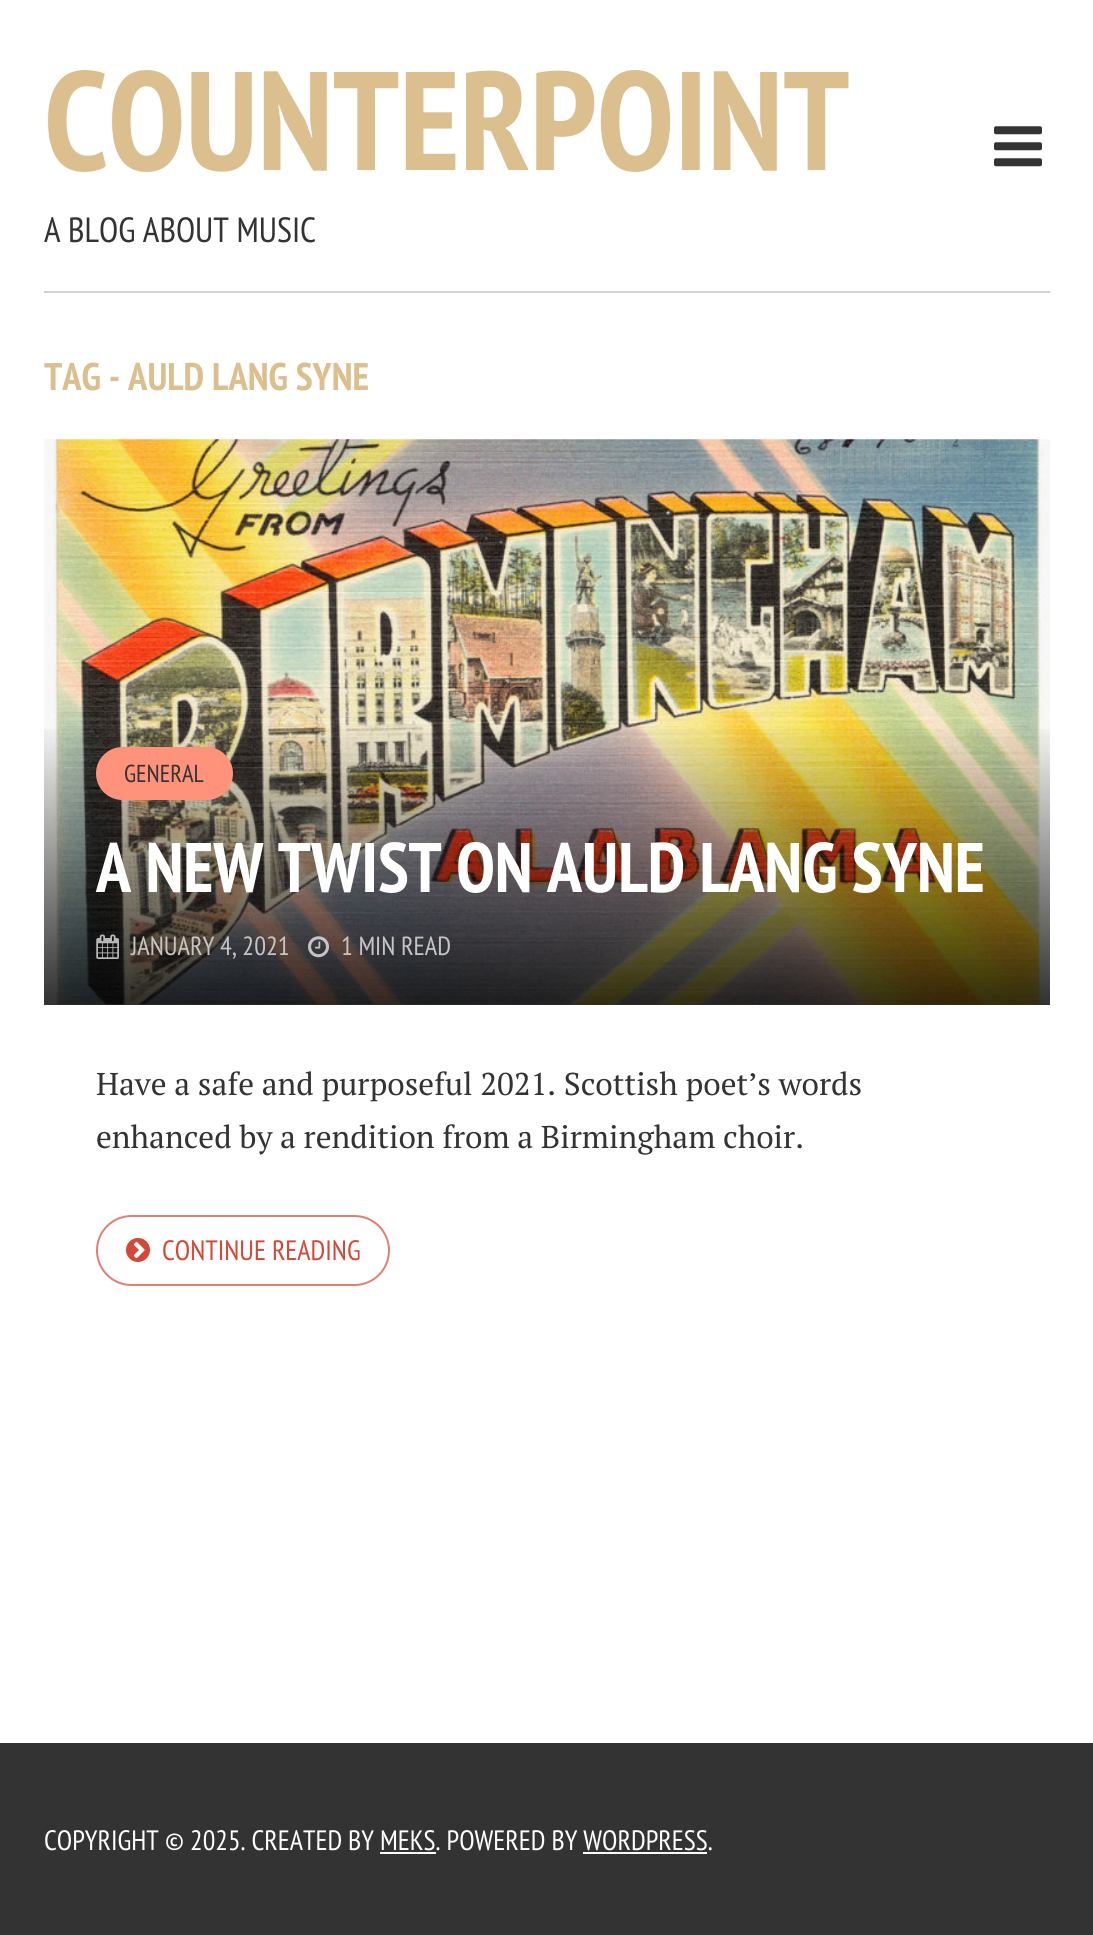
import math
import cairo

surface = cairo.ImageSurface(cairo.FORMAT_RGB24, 1093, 1935)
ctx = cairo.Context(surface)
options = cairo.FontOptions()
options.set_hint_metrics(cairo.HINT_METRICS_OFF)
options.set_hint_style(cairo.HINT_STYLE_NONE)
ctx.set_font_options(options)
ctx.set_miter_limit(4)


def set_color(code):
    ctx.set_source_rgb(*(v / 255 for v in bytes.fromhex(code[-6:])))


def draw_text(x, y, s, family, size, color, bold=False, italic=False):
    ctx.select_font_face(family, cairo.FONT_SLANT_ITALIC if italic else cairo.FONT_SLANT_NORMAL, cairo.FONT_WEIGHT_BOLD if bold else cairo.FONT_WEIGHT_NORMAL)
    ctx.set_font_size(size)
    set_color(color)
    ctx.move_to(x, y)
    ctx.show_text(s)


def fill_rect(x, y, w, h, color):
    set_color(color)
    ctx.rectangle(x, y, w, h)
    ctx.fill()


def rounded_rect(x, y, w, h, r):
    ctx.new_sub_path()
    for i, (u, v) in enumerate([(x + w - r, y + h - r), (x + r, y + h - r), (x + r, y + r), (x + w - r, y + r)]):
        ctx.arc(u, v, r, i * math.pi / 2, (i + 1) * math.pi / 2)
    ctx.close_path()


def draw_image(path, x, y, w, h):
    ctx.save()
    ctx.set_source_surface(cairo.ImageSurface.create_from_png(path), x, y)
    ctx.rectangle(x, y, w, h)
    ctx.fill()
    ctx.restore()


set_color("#ffffff")
ctx.paint()
draw_text(44, 170, "COUNTERPOINT", "PT Sans Narrow", 140, "#dbbf8e", bold=True)
draw_text(44, 242, "A BLOG ABOUT MUSIC", "PT Sans Narrow", 35, "#333333")
draw_image("assets/img1.png", 994, 126, 48, 41)
fill_rect(44, 291, 1006, 2, "#d3d3d3")
draw_text(44, 390, "TAG - AULD LANG SYNE", "PT Sans Narrow", 38.5, "#dbbf8e", bold=True)
draw_image("assets/img2.png", 44, 439, 1006, 566)
gradient = cairo.LinearGradient(547, 721, 547, 1005)
gradient.add_color_stop_rgba(0, 0, 0, 0, 0)
gradient.add_color_stop_rgba(1, 0, 0, 0, 0.8)
ctx.set_source(gradient)
ctx.rectangle(44, 729, 1006, 276)
ctx.fill()
set_color("#ff927a")
rounded_rect(96, 747, 137, 53, 26.5)
ctx.fill()
draw_text(124, 782, "GENERAL", "PT Sans Narrow", 24.5, "#333333")
draw_text(96, 892, "A NEW TWIST ON AULD LANG SYNE", "PT Sans Narrow", 70, "#ffffff", bold=True)
draw_image("assets/img3.png", 96, 934, 23, 25)
draw_text(131, 955, "JANUARY 4, 2021", "PT Sans Narrow", 26.25, "#c7c4c2")
draw_image("assets/img4.png", 308, 936, 21, 22)
draw_text(341, 955, "1 MIN READ", "PT Sans Narrow", 26.25, "#c7c4c2")
draw_text(96, 1095, "Have a safe and purposeful 2021. Scottish poet’s words", "PT Serif", 31.5, "#333333")
draw_text(96, 1148, "enhanced by a rendition from a Birmingham choir.", "PT Serif", 31.5, "#333333")
rounded_rect(97, 1216, 292, 69, 34.5)
set_color("#e07f72")
ctx.stroke()
draw_image("assets/img5.png", 126, 1238, 24, 24)
draw_text(162, 1260, "CONTINUE READING", "PT Sans Narrow", 28, "#d34836")
fill_rect(0, 1743, 1093, 192, "#333333")
draw_text(44, 1850, "COPYRIGHT © 2025. CREATED BY MEKS. POWERED BY WORDPRESS.", "PT Sans Narrow", 28, "#ffffff")
fill_rect(380, 1852, 56, 2, "#ffffff")
fill_rect(583, 1852, 124, 2, "#ffffff")
surface.write_to_png("output.png")
